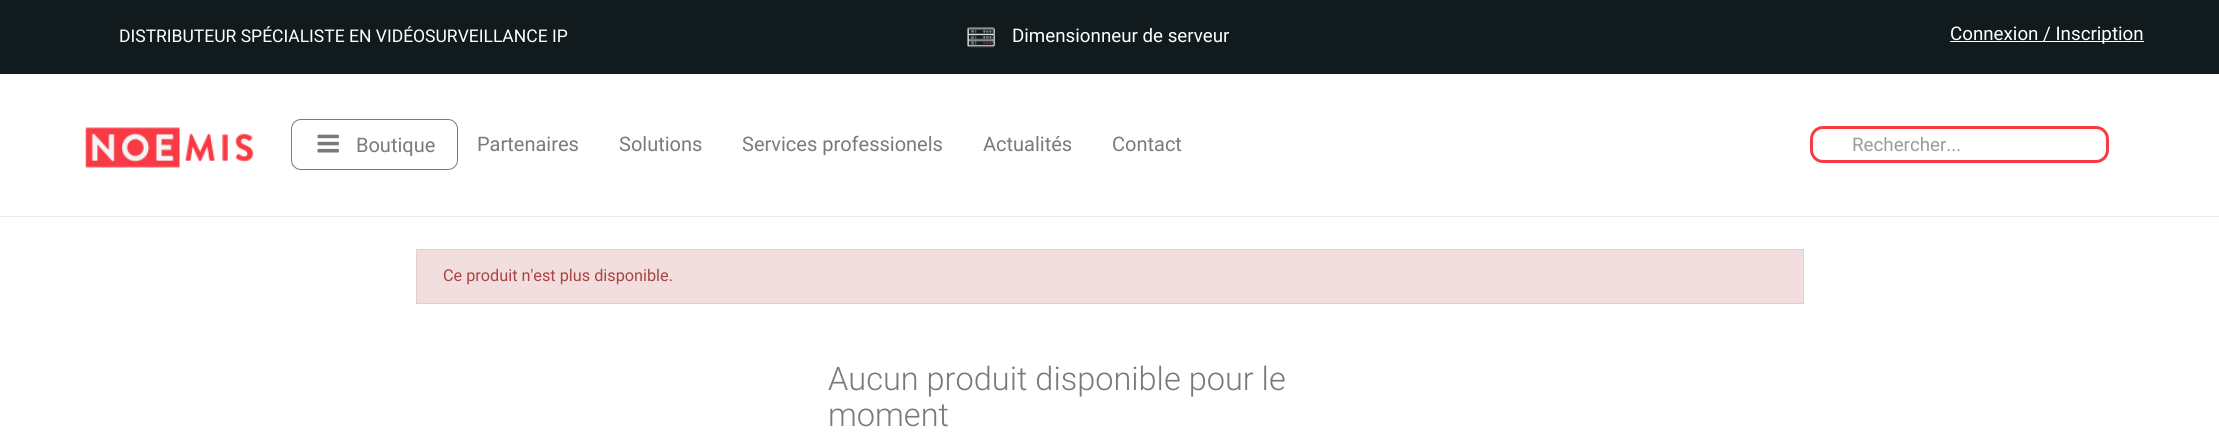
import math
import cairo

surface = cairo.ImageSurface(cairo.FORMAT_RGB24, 2219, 432)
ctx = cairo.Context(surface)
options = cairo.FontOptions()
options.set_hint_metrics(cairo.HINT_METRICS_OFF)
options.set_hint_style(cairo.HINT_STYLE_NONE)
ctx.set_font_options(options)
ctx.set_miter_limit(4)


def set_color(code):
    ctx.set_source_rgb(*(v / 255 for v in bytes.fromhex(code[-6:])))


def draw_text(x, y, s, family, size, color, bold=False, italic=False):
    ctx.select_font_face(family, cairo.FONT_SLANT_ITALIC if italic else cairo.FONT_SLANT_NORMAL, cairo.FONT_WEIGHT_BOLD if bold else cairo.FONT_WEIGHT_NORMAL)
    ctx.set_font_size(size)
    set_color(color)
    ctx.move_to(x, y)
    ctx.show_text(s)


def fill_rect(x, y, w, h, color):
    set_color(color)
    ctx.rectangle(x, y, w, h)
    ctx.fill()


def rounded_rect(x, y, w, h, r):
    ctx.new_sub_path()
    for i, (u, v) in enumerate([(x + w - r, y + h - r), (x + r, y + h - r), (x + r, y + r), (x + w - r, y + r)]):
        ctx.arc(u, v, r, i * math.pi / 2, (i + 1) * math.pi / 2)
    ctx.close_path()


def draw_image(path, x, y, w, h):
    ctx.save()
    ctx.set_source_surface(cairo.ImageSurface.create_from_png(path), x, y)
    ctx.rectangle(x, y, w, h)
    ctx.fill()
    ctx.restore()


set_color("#ffffff")
ctx.paint()
fill_rect(0, 0, 2219, 74, "#111b1e")
draw_text(119, 42, "DISTRIBUTEUR SPÉCIALISTE EN VIDÉOSURVEILLANCE IP", "Roboto", 17.5, "#ffffff")
draw_image("assets/img1.png", 967, 27, 28, 21)
draw_text(1012, 42, "Dimensionneur de serveur", "Roboto", 18.75, "#ffffff")
fill_rect(1950, 41, 194, 1, "#ffffff")
draw_text(1950, 40, "Connexion / Inscription", "Roboto", 18.75, "#ffffff")
fill_rect(0, 216, 2219, 1, "#ebebeb")
draw_image("assets/img2.png", 85, 127, 169, 41)
rounded_rect(291.5, 119.5, 166, 50, 9.5)
set_color("#7a7a7a")
ctx.set_line_width(1)
ctx.stroke()
draw_image("assets/img3.png", 317, 134, 22, 19)
draw_text(356, 152, "Boutique", "Roboto", 20, "#7a7a7a")
draw_text(477, 151, "Partenaires", "Roboto", 20, "#7a7a7a")
draw_text(619, 151, "Solutions", "Roboto", 20, "#7a7a7a")
draw_text(742, 151, "Services professionels", "Roboto", 20, "#7a7a7a")
draw_text(983, 151, "Actualités", "Roboto", 20, "#7a7a7a")
draw_text(1112, 151, "Contact", "Roboto", 20, "#7a7a7a")
rounded_rect(1811.5, 127.5, 296, 34, 11.5)
set_color("#f93943")
ctx.set_line_width(3)
ctx.stroke()
draw_text(1852, 151, "Rechercher...", "Roboto", 18.75, "#999b9d")
set_color("#f2dede")
ctx.rectangle(416.5, 249.5, 1387, 54)
ctx.fill_preserve()
set_color("#ebcccc")
ctx.set_line_width(1)
ctx.stroke()
draw_text(443, 281, "Ce produit n'est plus disponible.", "Roboto", 16.25, "#a94442")
draw_text(828, 390, "Aucun produit disponible pour le", "Roboto Light", 32.5, "#7a7a7a")
draw_text(828, 426, "moment", "Roboto Light", 32.5, "#7a7a7a")
surface.write_to_png("output.png")
